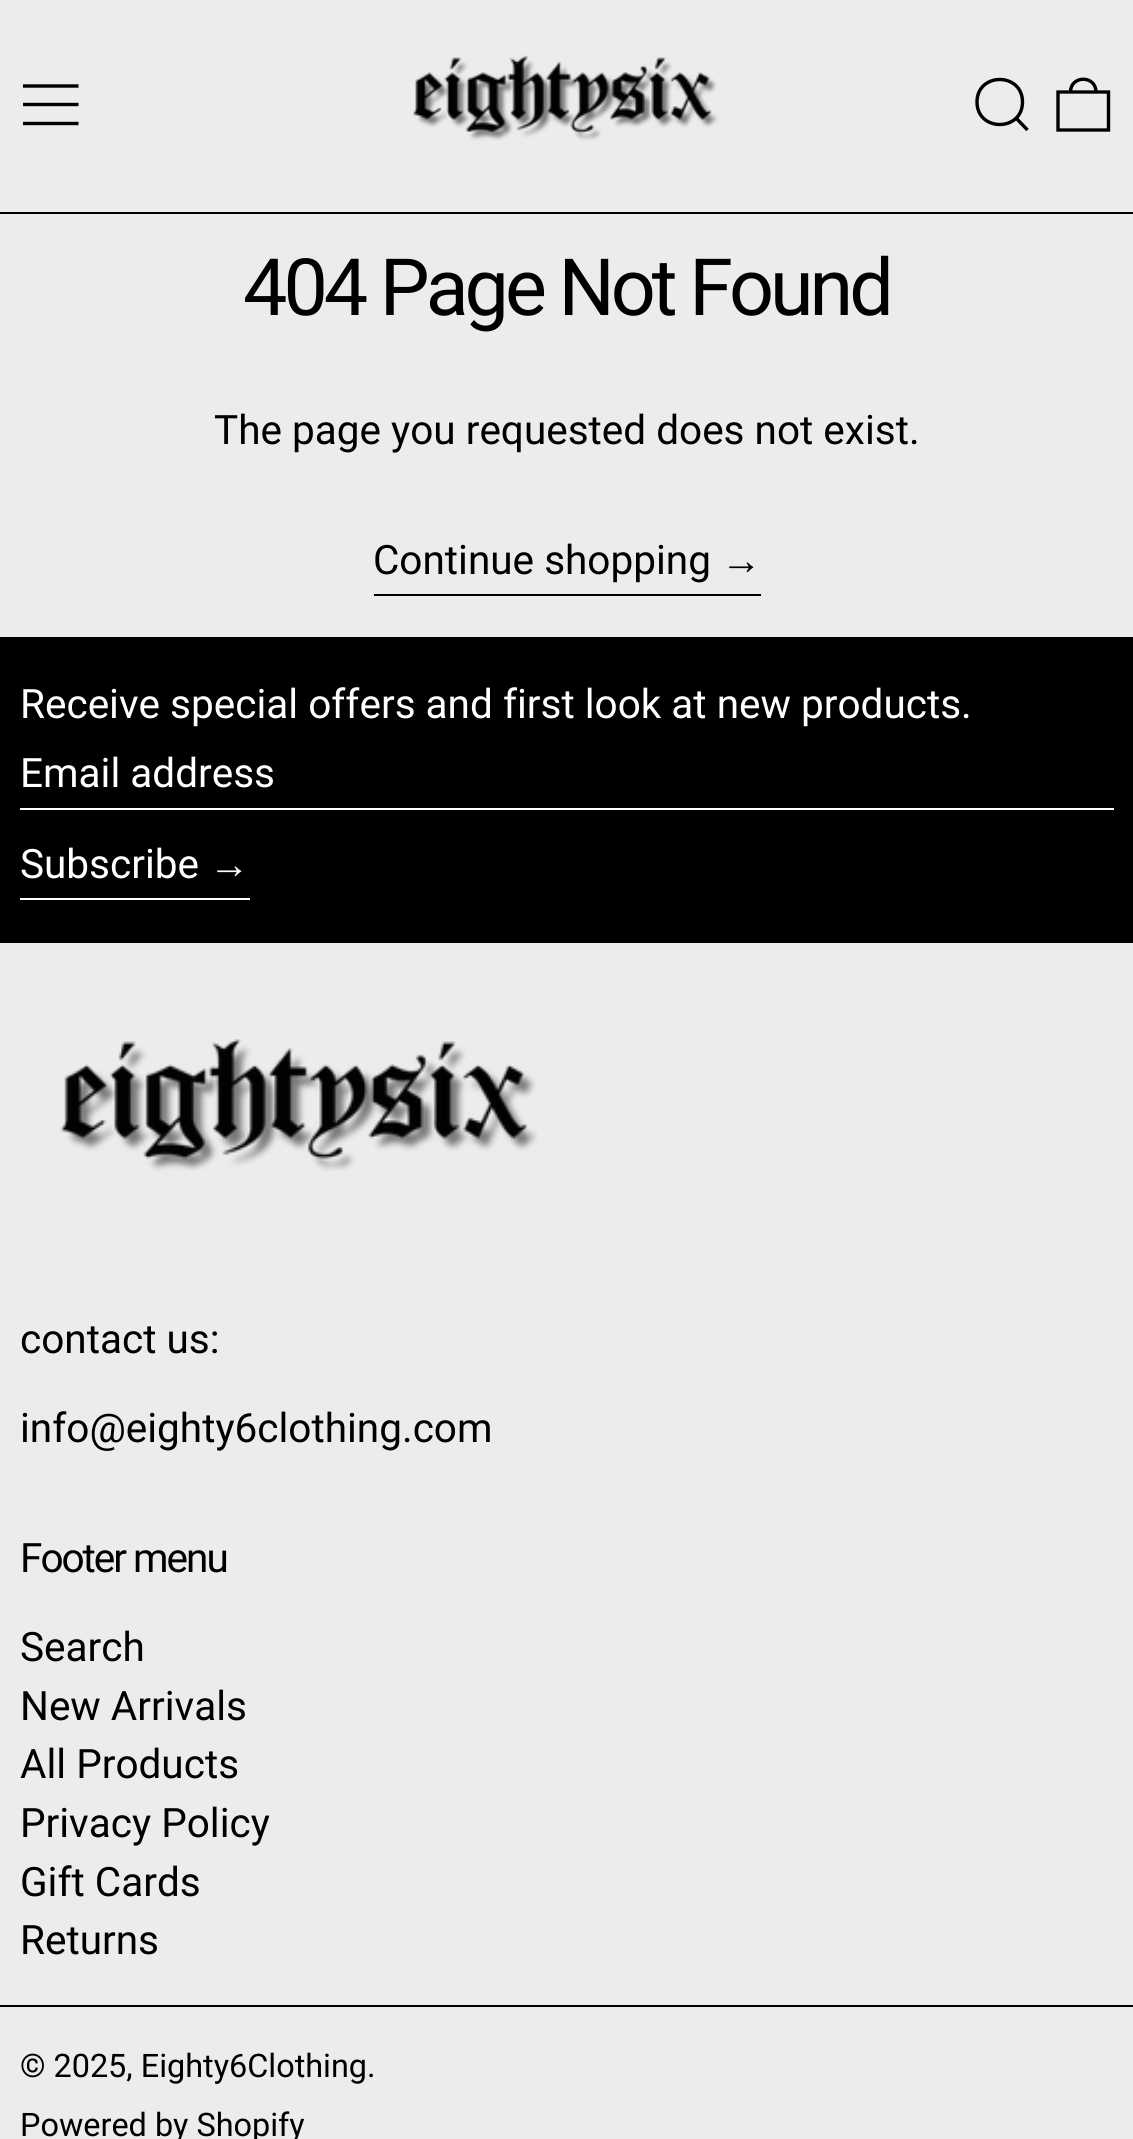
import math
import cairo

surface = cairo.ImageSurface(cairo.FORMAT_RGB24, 1133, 2139)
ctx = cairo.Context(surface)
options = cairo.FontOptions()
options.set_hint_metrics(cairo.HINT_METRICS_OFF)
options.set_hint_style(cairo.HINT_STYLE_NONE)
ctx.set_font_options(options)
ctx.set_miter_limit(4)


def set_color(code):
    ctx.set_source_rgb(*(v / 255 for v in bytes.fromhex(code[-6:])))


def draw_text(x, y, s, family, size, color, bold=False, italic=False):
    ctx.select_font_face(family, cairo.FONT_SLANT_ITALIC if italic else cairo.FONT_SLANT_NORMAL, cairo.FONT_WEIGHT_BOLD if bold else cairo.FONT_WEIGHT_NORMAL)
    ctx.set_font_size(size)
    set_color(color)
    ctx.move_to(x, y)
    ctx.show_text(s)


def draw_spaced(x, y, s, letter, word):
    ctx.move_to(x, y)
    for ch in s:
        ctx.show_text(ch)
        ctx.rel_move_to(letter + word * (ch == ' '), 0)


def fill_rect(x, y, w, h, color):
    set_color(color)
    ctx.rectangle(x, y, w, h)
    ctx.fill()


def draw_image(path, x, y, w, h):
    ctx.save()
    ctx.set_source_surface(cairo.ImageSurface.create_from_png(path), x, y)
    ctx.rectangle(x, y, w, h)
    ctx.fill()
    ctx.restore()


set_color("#ececec")
ctx.paint()
fill_rect(0, 212, 1133, 2, "#000000")
ctx.new_path()
ctx.move_to(23, 86)
ctx.line_to(78.5, 86)
ctx.move_to(23, 104.5)
ctx.line_to(78.5, 104.5)
ctx.move_to(23, 123.5)
ctx.line_to(78.5, 123.5)
ctx.set_line_width(3.4)
ctx.stroke()
draw_image("assets/img1.png", 412, 55, 306, 86)
ctx.new_path()
ctx.move_to(977, 102)
ctx.curve_to(977, 132, 1022.5, 132, 1022.5, 102)
ctx.curve_to(1022.5, 72, 977, 72, 977, 102)
ctx.close_path()
ctx.move_to(1016, 118)
ctx.line_to(1027.5, 130)
ctx.stroke()
ctx.new_path()
ctx.move_to(1058, 92)
ctx.line_to(1108.5, 92)
ctx.line_to(1108.5, 130)
ctx.line_to(1058, 130)
ctx.close_path()
ctx.move_to(1096, 92)
ctx.curve_to(1096, 75, 1070.5, 75, 1070.5, 92)
ctx.stroke()
fill_rect(0, 637, 1133, 306, "#000000")
ctx.select_font_face("Roboto")
ctx.set_font_size(79)
draw_spaced(243, 315, "404 Page Not Found", -4, 0)
draw_text(214, 444, "The page you requested does not exist.", "Roboto", 40.5, "#000000")
fill_rect(374, 594, 387, 2, "#000000")
draw_text(373, 574, "Continue shopping", "Roboto", 40.5, "#000000")
draw_text(721, 574, "→", "Liberation Sans", 40.5, "#000000")
draw_text(20, 718, "Receive special offers and first look at new products.", "Roboto", 40.5, "#ffffff")
fill_rect(20, 808, 1094, 2, "#ffffff")
draw_text(20, 787, "Email address", "Roboto", 40.5, "#ffffff")
fill_rect(20, 898, 230, 2, "#ffffff")
draw_text(20, 878, "Subscribe", "Roboto", 40.5, "#ffffff")
draw_text(209, 878, "→", "Liberation Sans", 40.5, "#ffffff")
fill_rect(0, 2005, 1133, 2, "#000000")
draw_image("assets/img2.png", 60, 1039, 478, 132)
draw_text(20, 1353, "contact us:", "Roboto", 40.5, "#000000")
draw_text(20, 1442, "info@eighty6clothing.com", "Roboto", 40.5, "#000000")
draw_spaced(20, 1572, "Footer menu", -2, 0)
draw_text(20, 1661, "Search", "Roboto", 40.5, "#000000")
draw_text(20, 1720, "New Arrivals", "Roboto", 40.5, "#000000")
draw_text(20, 1778, "All Products", "Roboto", 40.5, "#000000")
draw_text(20, 1837, "Privacy Policy", "Roboto", 40.5, "#000000")
draw_text(20, 1896, "Gift Cards", "Roboto", 40.5, "#000000")
draw_text(20, 1954, "Returns", "Roboto", 40.5, "#000000")
draw_text(20, 2077, "© 2025, Eighty6Clothing.", "Roboto", 32.4, "#000000")
draw_text(20, 2136, "Powered by Shopify", "Roboto", 32.4, "#000000")
surface.write_to_png("output.png")
